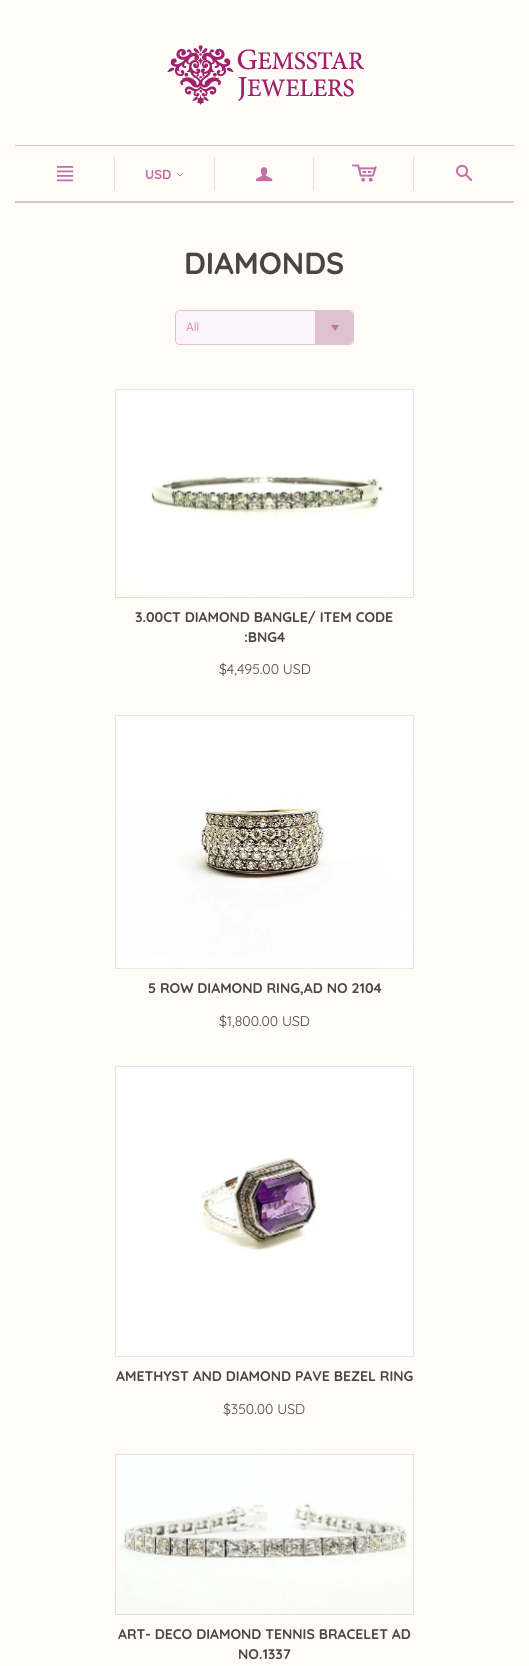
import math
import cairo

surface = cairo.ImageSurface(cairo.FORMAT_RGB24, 529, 1666)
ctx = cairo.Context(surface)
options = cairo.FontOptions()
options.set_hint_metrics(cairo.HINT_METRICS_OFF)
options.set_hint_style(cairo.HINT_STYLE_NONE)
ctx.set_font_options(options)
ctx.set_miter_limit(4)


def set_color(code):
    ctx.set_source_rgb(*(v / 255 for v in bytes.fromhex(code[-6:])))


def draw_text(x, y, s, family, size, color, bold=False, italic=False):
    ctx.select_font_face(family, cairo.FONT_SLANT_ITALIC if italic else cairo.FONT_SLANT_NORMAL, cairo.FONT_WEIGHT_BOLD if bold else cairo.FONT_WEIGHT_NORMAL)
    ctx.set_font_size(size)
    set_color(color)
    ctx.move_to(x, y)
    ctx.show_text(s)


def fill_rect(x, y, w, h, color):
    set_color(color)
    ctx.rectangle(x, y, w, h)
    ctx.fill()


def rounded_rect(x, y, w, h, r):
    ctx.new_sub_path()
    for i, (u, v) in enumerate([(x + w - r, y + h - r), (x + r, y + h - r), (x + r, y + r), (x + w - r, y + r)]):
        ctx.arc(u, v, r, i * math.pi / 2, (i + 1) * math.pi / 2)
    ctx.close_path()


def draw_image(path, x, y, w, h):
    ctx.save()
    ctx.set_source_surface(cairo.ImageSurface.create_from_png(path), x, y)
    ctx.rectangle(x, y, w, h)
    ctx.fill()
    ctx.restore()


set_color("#fffcf8")
ctx.paint()
draw_image("assets/img1.png", 167, 45, 197, 60)
fill_rect(15, 145, 499, 1, "#dec3cf")
fill_rect(15, 201, 499, 2, "#dec3cf")
draw_image("assets/img2.png", 57, 166, 17, 16)
fill_rect(114, 157, 1, 33, "#ebdae2")
draw_text(145, 179, "USD", "Quicksand", 13, "#c46fa7", bold=True)
draw_image("assets/img3.png", 177, 172, 7, 5)
fill_rect(214, 157, 1, 33, "#ebdae2")
draw_image("assets/img4.png", 256, 167, 17, 15)
fill_rect(313, 157, 1, 33, "#ebdae2")
draw_image("assets/img5.png", 352, 164, 25, 18)
fill_rect(413, 157, 1, 33, "#ebdae2")
draw_image("assets/img6.png", 456, 164, 17, 17)
draw_text(184, 274, "DIAMONDS", "Quicksand", 30.5, "#474747", bold=True)
rounded_rect(175.5, 310.5, 178, 34, 4.5)
set_color("#dec3cf")
ctx.set_line_width(1)
ctx.stroke()
set_color("#fcf4f8")
rounded_rect(176, 311, 177, 33, 4)
ctx.fill()
draw_text(186, 331, "All", "Quicksand", 12, "#c46fa7")
set_color("#dec3cf")
ctx.new_path()
ctx.move_to(315, 311)
ctx.line_to(349, 311)
ctx.curve_to(351, 311, 353, 313, 353, 315)
ctx.line_to(353, 340)
ctx.curve_to(353, 342, 351, 344, 349, 344)
ctx.line_to(315, 344)
ctx.close_path()
ctx.fill()
set_color("#c46fa7")
ctx.new_path()
ctx.move_to(331, 325)
ctx.line_to(339, 325)
ctx.line_to(335, 331)
ctx.close_path()
ctx.fill()
draw_image("assets/img7.png", 115, 389, 299, 209)
ctx.rectangle(115.5, 389.5, 298, 208)
ctx.set_source_rgba(0, 0, 0, 0.1)
ctx.stroke()
draw_text(135, 622, "3.00CT DIAMOND BANGLE/ ITEM CODE", "Quicksand", 14, "#474747", bold=True)
draw_text(244, 642, ":BNG4", "Quicksand", 14, "#474747", bold=True)
draw_text(219, 674, "$4,495.00 USD", "Quicksand", 14, "#474747")
draw_image("assets/img8.png", 115, 715, 299, 254)
ctx.rectangle(115.5, 715.5, 298, 253)
ctx.set_source_rgba(0, 0, 0, 0.1)
ctx.stroke()
draw_text(148, 993, "5 ROW DIAMOND RING,AD NO 2104", "Quicksand", 14, "#474747", bold=True)
draw_text(219, 1026, "$1,800.00 USD", "Quicksand", 14, "#474747")
draw_image("assets/img9.png", 116, 1067, 297, 289)
ctx.rectangle(115.5, 1066.5, 298, 290)
set_color("#e6e6e6")
ctx.stroke()
draw_text(116, 1381, "AMETHYST AND DIAMOND PAVE BEZEL RING", "Quicksand", 14, "#474747", bold=True)
draw_text(223, 1414, "$350.00 USD", "Quicksand", 14, "#474747")
draw_image("assets/img10.png", 115, 1454, 299, 161)
ctx.rectangle(115.5, 1454.5, 298, 160)
ctx.set_source_rgba(0, 0, 0, 0.1)
ctx.stroke()
draw_text(118, 1639, "ART- DECO DIAMOND TENNIS BRACELET AD", "Quicksand", 14, "#474747", bold=True)
draw_text(238, 1659, "NO.1337", "Quicksand", 14, "#474747", bold=True)
surface.write_to_png("output.png")
